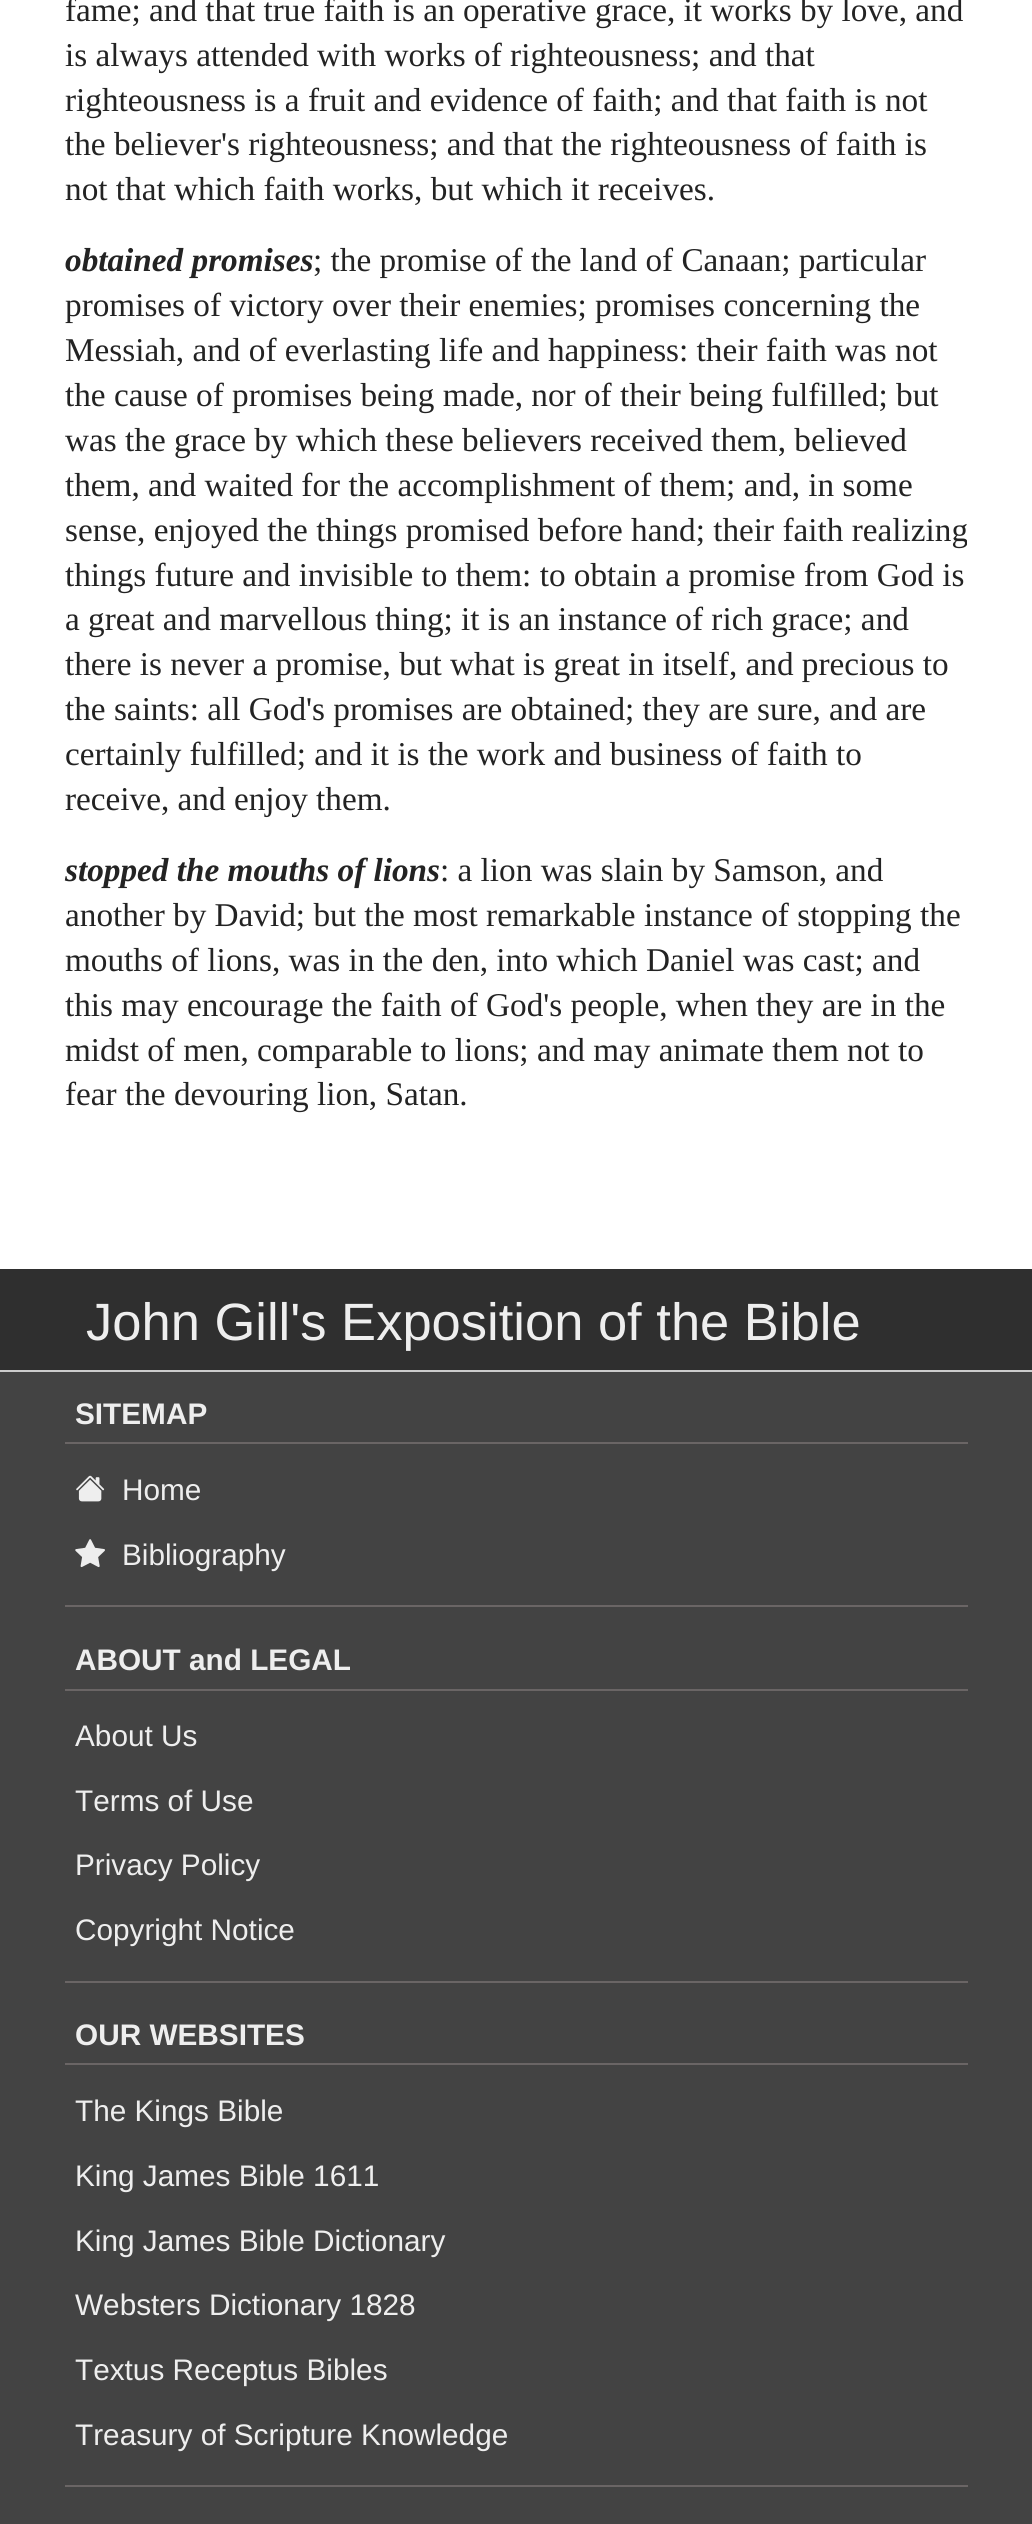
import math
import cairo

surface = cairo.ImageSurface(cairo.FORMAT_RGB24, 1032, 2524)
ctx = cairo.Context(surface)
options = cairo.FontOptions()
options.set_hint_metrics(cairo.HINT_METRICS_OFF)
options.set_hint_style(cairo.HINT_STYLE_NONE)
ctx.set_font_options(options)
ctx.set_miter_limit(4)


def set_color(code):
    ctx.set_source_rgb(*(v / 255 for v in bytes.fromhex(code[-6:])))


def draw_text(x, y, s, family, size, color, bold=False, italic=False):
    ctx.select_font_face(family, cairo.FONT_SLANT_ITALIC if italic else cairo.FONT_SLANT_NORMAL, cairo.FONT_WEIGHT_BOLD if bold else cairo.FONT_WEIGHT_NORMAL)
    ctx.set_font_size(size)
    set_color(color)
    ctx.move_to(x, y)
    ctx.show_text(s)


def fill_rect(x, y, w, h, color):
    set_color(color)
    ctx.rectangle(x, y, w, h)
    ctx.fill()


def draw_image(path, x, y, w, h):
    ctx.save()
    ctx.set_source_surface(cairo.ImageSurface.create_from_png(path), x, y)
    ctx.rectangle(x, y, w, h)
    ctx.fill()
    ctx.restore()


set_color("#ffffff")
ctx.paint()
draw_text(65, 21, "fame; and that true faith is an operative grace, it works by love, and", "Liberation Serif", 33.25, "#232323")
draw_text(65, 66, "is always attended with works of righteousness; and that", "Liberation Serif", 33.25, "#232323")
draw_text(65, 111, "righteousness is a fruit and evidence of faith; and that faith is not", "Liberation Serif", 33.25, "#232323")
draw_text(65, 155, "the believer's righteousness; and that the righteousness of faith is", "Liberation Serif", 33.25, "#232323")
draw_text(65, 200, "not that which faith works, but which it receives.", "Liberation Serif", 33.25, "#232323")
draw_text(65, 271, "obtained promises", "Liberation Serif", 33.25, "#232323", bold=True, italic=True)
draw_text(313, 271, "; the promise of the land of Canaan; particular", "Liberation Serif", 33.25, "#232323")
draw_text(65, 316, "promises of victory over their enemies; promises concerning the", "Liberation Serif", 33.25, "#232323")
draw_text(65, 361, "Messiah, and of everlasting life and happiness: their faith was not", "Liberation Serif", 33.25, "#232323")
draw_text(65, 406, "the cause of promises being made, nor of their being fulfilled; but", "Liberation Serif", 33.25, "#232323")
draw_text(65, 451, "was the grace by which these believers received them, believed", "Liberation Serif", 33.25, "#232323")
draw_text(65, 496, "them, and waited for the accomplishment of them; and, in some", "Liberation Serif", 33.25, "#232323")
draw_text(65, 541, "sense, enjoyed the things promised before hand; their faith realizing", "Liberation Serif", 33.25, "#232323")
draw_text(65, 586, "things future and invisible to them: to obtain a promise from God is", "Liberation Serif", 33.25, "#232323")
draw_text(65, 630, "a great and marvellous thing; it is an instance of rich grace; and", "Liberation Serif", 33.25, "#232323")
draw_text(65, 675, "there is never a promise, but what is great in itself, and precious to", "Liberation Serif", 33.25, "#232323")
draw_text(65, 720, "the saints: all God's promises are obtained; they are sure, and are", "Liberation Serif", 33.25, "#232323")
draw_text(65, 765, "certainly fulfilled; and it is the work and business of faith to", "Liberation Serif", 33.25, "#232323")
draw_text(65, 810, "receive, and enjoy them.", "Liberation Serif", 33.25, "#232323")
draw_text(65, 881, "stopped the mouths of lions", "Liberation Serif", 33.25, "#232323", bold=True, italic=True)
draw_text(440, 881, ": a lion was slain by Samson, and", "Liberation Serif", 33.25, "#232323")
draw_text(65, 926, "another by David; but the most remarkable instance of stopping the", "Liberation Serif", 33.25, "#232323")
draw_text(65, 971, "mouths of lions, was in the den, into which Daniel was cast; and", "Liberation Serif", 33.25, "#232323")
draw_text(65, 1016, "this may encourage the faith of God's people, when they are in the", "Liberation Serif", 33.25, "#232323")
draw_text(65, 1061, "midst of men, comparable to lions; and may animate them not to", "Liberation Serif", 33.25, "#232323")
draw_text(65, 1105, "fear the devouring lion, Satan.", "Liberation Serif", 33.25, "#232323")
fill_rect(0, 1372, 1032, 1152, "#434343")
fill_rect(0, 1269, 1032, 101, "#2f2f2f")
fill_rect(0, 1370, 1032, 2, "#cccccc")
draw_text(86, 1340, "John Gill's Exposition of the Bible", "Liberation Sans", 52.5, "#eeeeee")
draw_text(75, 1424, "SITEMAP", "Liberation Sans", 29.75, "#eeeeee", bold=True)
fill_rect(65, 1442, 903, 2, "#6a6565")
draw_image("assets/img1.png", 76, 1475, 29, 27)
draw_text(122, 1500, "Home", "Liberation Sans", 29.75, "#eeeeee")
draw_image("assets/img2.png", 75, 1539, 30, 29)
draw_text(122, 1565, "Bibliography", "Liberation Sans", 29.75, "#eeeeee")
fill_rect(65, 1605, 903, 2, "#6a6565")
draw_text(75, 1670, "ABOUT and LEGAL", "Liberation Sans", 29.75, "#eeeeee", bold=True)
fill_rect(65, 1689, 903, 2, "#6a6565")
draw_text(75, 1746, "About Us", "Liberation Sans", 29.75, "#eeeeee")
draw_text(75, 1811, "Terms of Use", "Liberation Sans", 29.75, "#eeeeee")
draw_text(75, 1875, "Privacy Policy", "Liberation Sans", 29.75, "#eeeeee")
draw_text(75, 1940, "Copyright Notice", "Liberation Sans", 29.75, "#eeeeee")
fill_rect(65, 1981, 903, 2, "#6a6565")
draw_text(75, 2045, "OUR WEBSITES", "Liberation Sans", 29.75, "#eeeeee", bold=True)
fill_rect(65, 2063, 903, 2, "#6a6565")
draw_text(75, 2121, "The Kings Bible", "Liberation Sans", 29.75, "#eeeeee")
draw_text(75, 2186, "King James Bible 1611", "Liberation Sans", 29.75, "#eeeeee")
draw_text(75, 2251, "King James Bible Dictionary", "Liberation Sans", 29.75, "#eeeeee")
draw_text(75, 2315, "Websters Dictionary 1828", "Liberation Sans", 29.75, "#eeeeee")
draw_text(75, 2380, "Textus Receptus Bibles", "Liberation Sans", 29.75, "#eeeeee")
draw_text(75, 2445, "Treasury of Scripture Knowledge", "Liberation Sans", 29.75, "#eeeeee")
fill_rect(65, 2485, 903, 2, "#6a6565")
surface.write_to_png("output.png")
